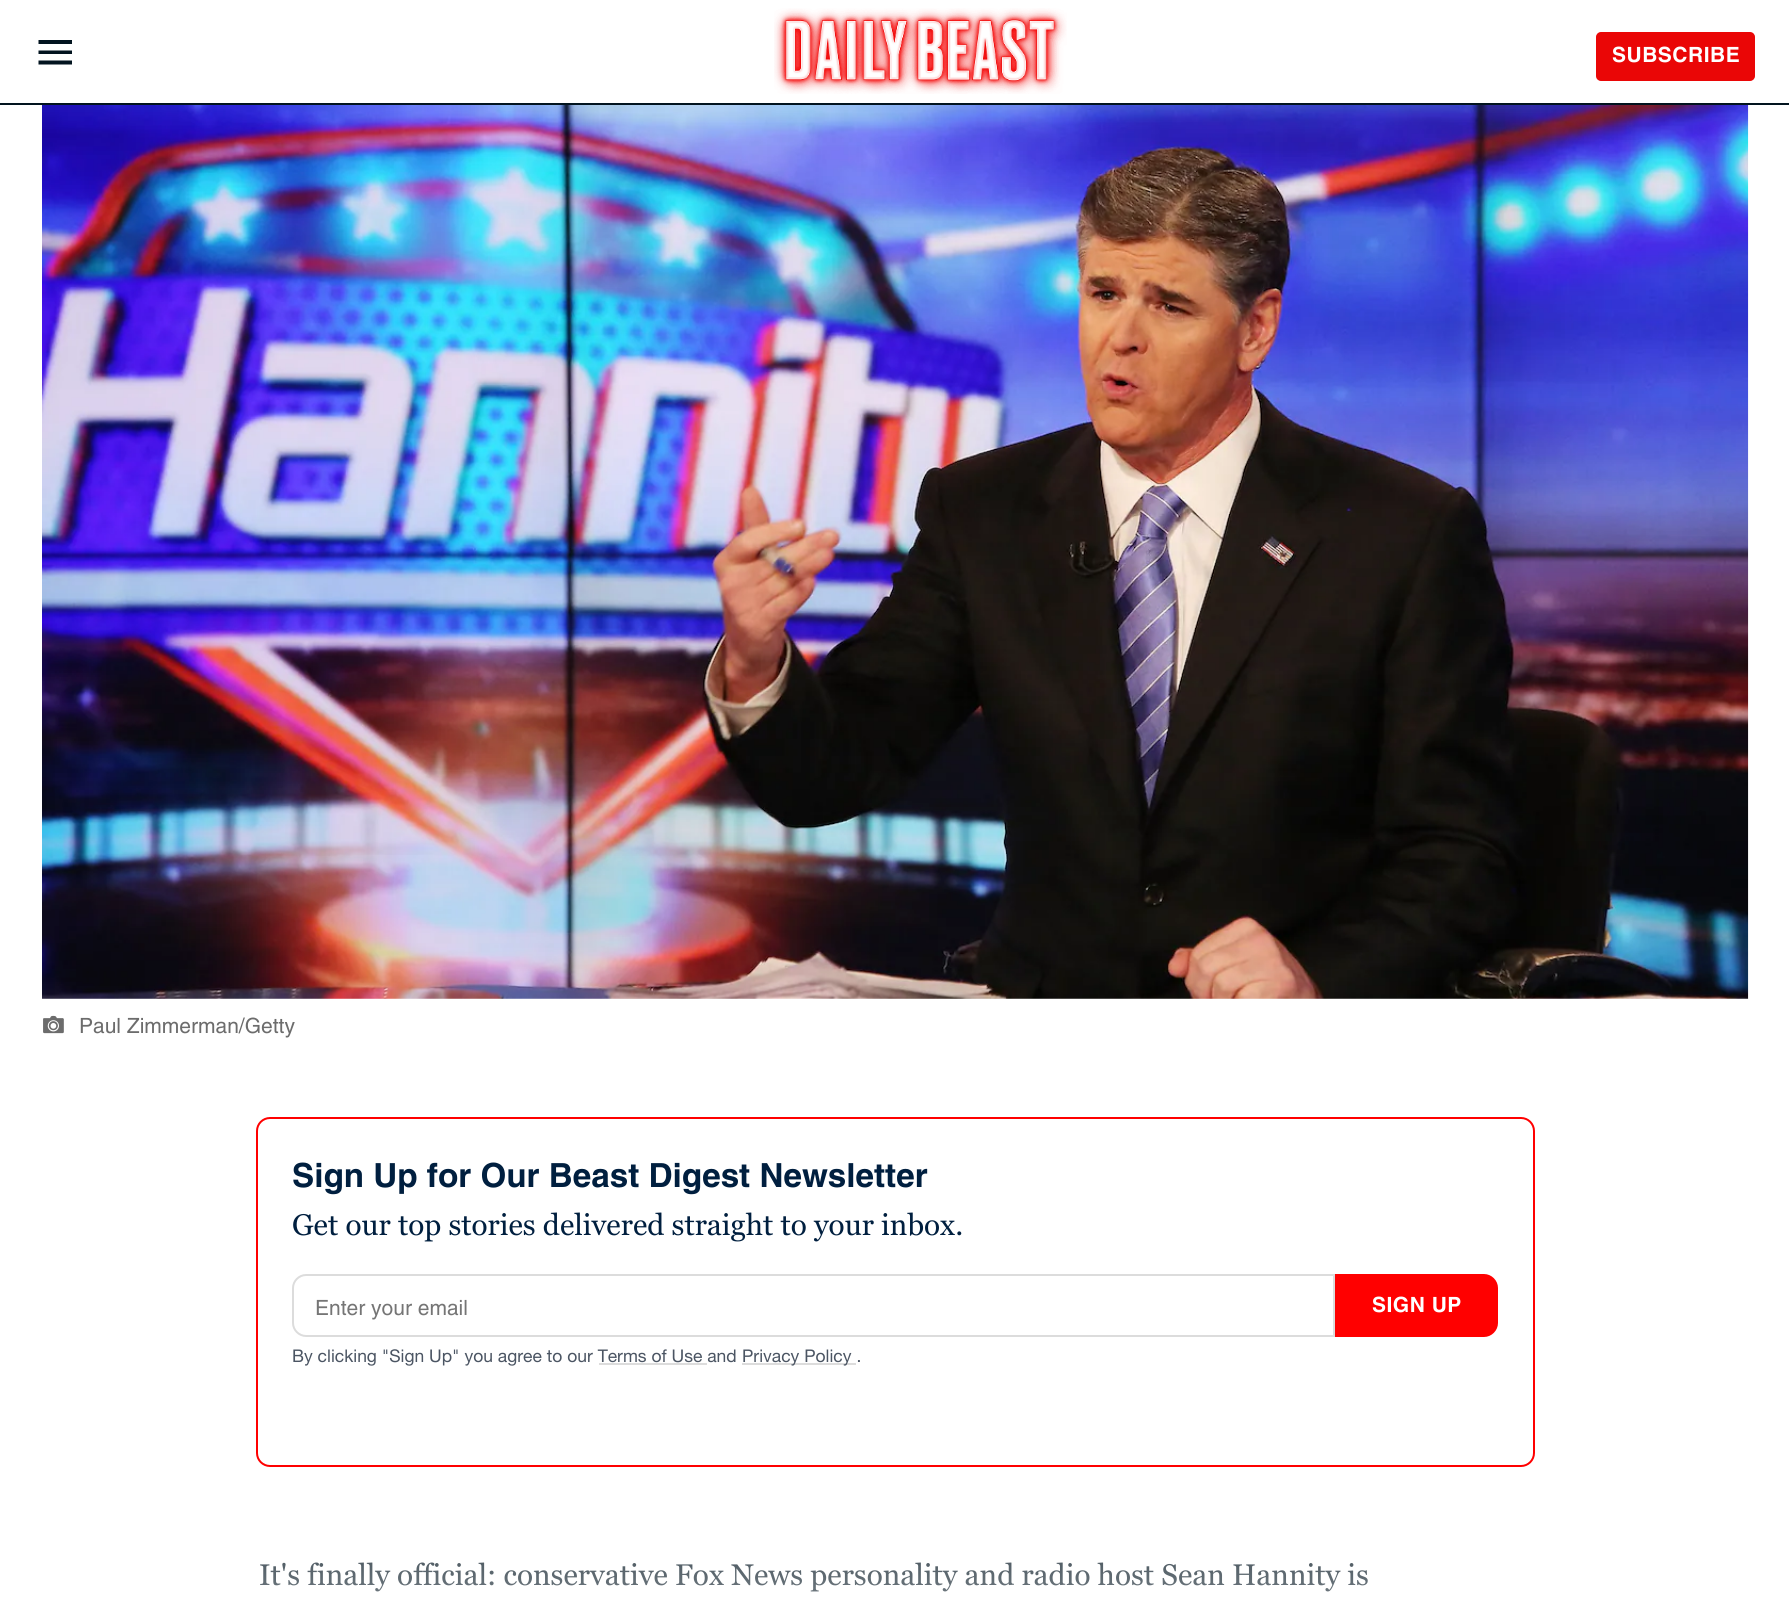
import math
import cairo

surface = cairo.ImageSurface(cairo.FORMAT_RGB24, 1789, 1601)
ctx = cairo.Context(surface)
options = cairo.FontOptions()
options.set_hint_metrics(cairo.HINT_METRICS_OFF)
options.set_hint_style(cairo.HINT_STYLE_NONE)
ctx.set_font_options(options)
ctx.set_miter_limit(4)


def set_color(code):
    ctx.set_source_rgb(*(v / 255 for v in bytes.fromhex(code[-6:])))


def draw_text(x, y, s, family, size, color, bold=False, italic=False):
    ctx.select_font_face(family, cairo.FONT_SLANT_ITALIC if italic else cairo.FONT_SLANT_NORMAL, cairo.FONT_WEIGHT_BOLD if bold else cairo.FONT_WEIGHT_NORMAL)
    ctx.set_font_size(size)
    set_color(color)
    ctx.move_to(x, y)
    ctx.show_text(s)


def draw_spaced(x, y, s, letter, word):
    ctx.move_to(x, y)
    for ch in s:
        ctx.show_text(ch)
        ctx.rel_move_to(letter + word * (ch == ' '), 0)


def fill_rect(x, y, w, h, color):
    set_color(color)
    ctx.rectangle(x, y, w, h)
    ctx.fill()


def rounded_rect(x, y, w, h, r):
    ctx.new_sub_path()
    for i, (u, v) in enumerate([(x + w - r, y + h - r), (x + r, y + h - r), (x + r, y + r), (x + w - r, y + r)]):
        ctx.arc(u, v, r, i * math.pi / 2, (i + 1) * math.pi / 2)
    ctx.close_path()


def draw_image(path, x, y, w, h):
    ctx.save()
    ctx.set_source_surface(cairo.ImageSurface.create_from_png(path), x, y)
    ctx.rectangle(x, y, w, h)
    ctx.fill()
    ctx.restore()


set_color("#ffffff")
ctx.paint()
fill_rect(0, 103, 1789, 2, "#02141f")
ctx.new_path()
ctx.move_to(38.5, 40)
ctx.line_to(72, 40)
ctx.line_to(72, 44)
ctx.line_to(38.5, 44)
ctx.close_path()
ctx.move_to(38.5, 50.5)
ctx.line_to(72, 50.5)
ctx.line_to(72, 54)
ctx.line_to(38.5, 54)
ctx.close_path()
ctx.move_to(38.5, 60.5)
ctx.line_to(72, 60.5)
ctx.line_to(72, 64.5)
ctx.line_to(38.5, 64.5)
ctx.close_path()
ctx.fill()
draw_image("assets/img1.png", 774, 8, 293, 86)
set_color("#ea0606")
rounded_rect(1597, 33, 157, 47, 4)
ctx.fill_preserve()
ctx.stroke()
ctx.select_font_face("Helvetica", cairo.FONT_SLANT_NORMAL, cairo.FONT_WEIGHT_BOLD)
ctx.set_font_size(21)
set_color("#ffffff")
draw_spaced(1612, 62, "SUBSCRIBE", 0.5, 0)
draw_image("assets/img2.png", 42, 105, 1707, 894)
draw_image("assets/img3.png", 43, 1015, 21, 19)
draw_text(79, 1033, "Paul Zimmerman/Getty", "Helvetica", 21, "#6c6c6c")
rounded_rect(257, 1118, 1277, 348, 13)
set_color("#ff0000")
ctx.stroke()
draw_text(292, 1187, "Sign Up for Our Beast Digest Newsletter", "Helvetica", 33.25, "#001f3f", bold=True)
draw_text(292, 1235, "Get our top stories delivered straight to your inbox.", "Georgia", 29.75, "#001f3f")
ctx.new_path()
ctx.move_to(306, 1275)
ctx.line_to(1334, 1275)
ctx.line_to(1334, 1336)
ctx.line_to(306, 1336)
ctx.curve_to(299, 1336, 293, 1330, 293, 1323)
ctx.line_to(293, 1288)
ctx.curve_to(293, 1281, 299, 1275, 306, 1275)
ctx.close_path()
set_color("#dcdcdc")
ctx.stroke()
draw_text(315, 1315, "Enter your email", "Helvetica", 21, "#757575")
set_color("#ff0000")
ctx.new_path()
ctx.move_to(1336, 1275)
ctx.line_to(1484, 1275)
ctx.curve_to(1491, 1275, 1497, 1281, 1497, 1288)
ctx.line_to(1497, 1323)
ctx.curve_to(1497, 1330, 1491, 1336, 1484, 1336)
ctx.line_to(1336, 1336)
ctx.close_path()
ctx.fill_preserve()
ctx.stroke()
ctx.select_font_face("Helvetica", cairo.FONT_SLANT_NORMAL, cairo.FONT_WEIGHT_BOLD)
set_color("#ffffff")
draw_spaced(1372, 1312, "SIGN UP", 0.5, 0)
draw_text(292, 1362, "By clicking \"Sign Up\" you agree to our Terms of Use and", "Helvetica Neue", 17.5, "#4b5563")
fill_rect(742, 1363, 114, 2, "#dcdcdc")
draw_text(742, 1362, "Privacy Policy .", "Helvetica Neue", 17.5, "#4b5563")
fill_rect(599, 1363, 108, 2, "#dcdcdc")
draw_text(259, 1585, "It's finally official: conservative Fox News personality and radio host Sean Hannity is", "Georgia", 29.75, "#283741")
gradient = cairo.LinearGradient(1112, 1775, 1112, 1509)
gradient.add_color_stop_rgba(0, 1, 1, 1, 1)
gradient.add_color_stop_rgba(1, 1, 1, 1, 0)
ctx.set_source(gradient)
ctx.rectangle(259, 1562, 1109, 30)
ctx.fill()
surface.write_to_png("output.png")
